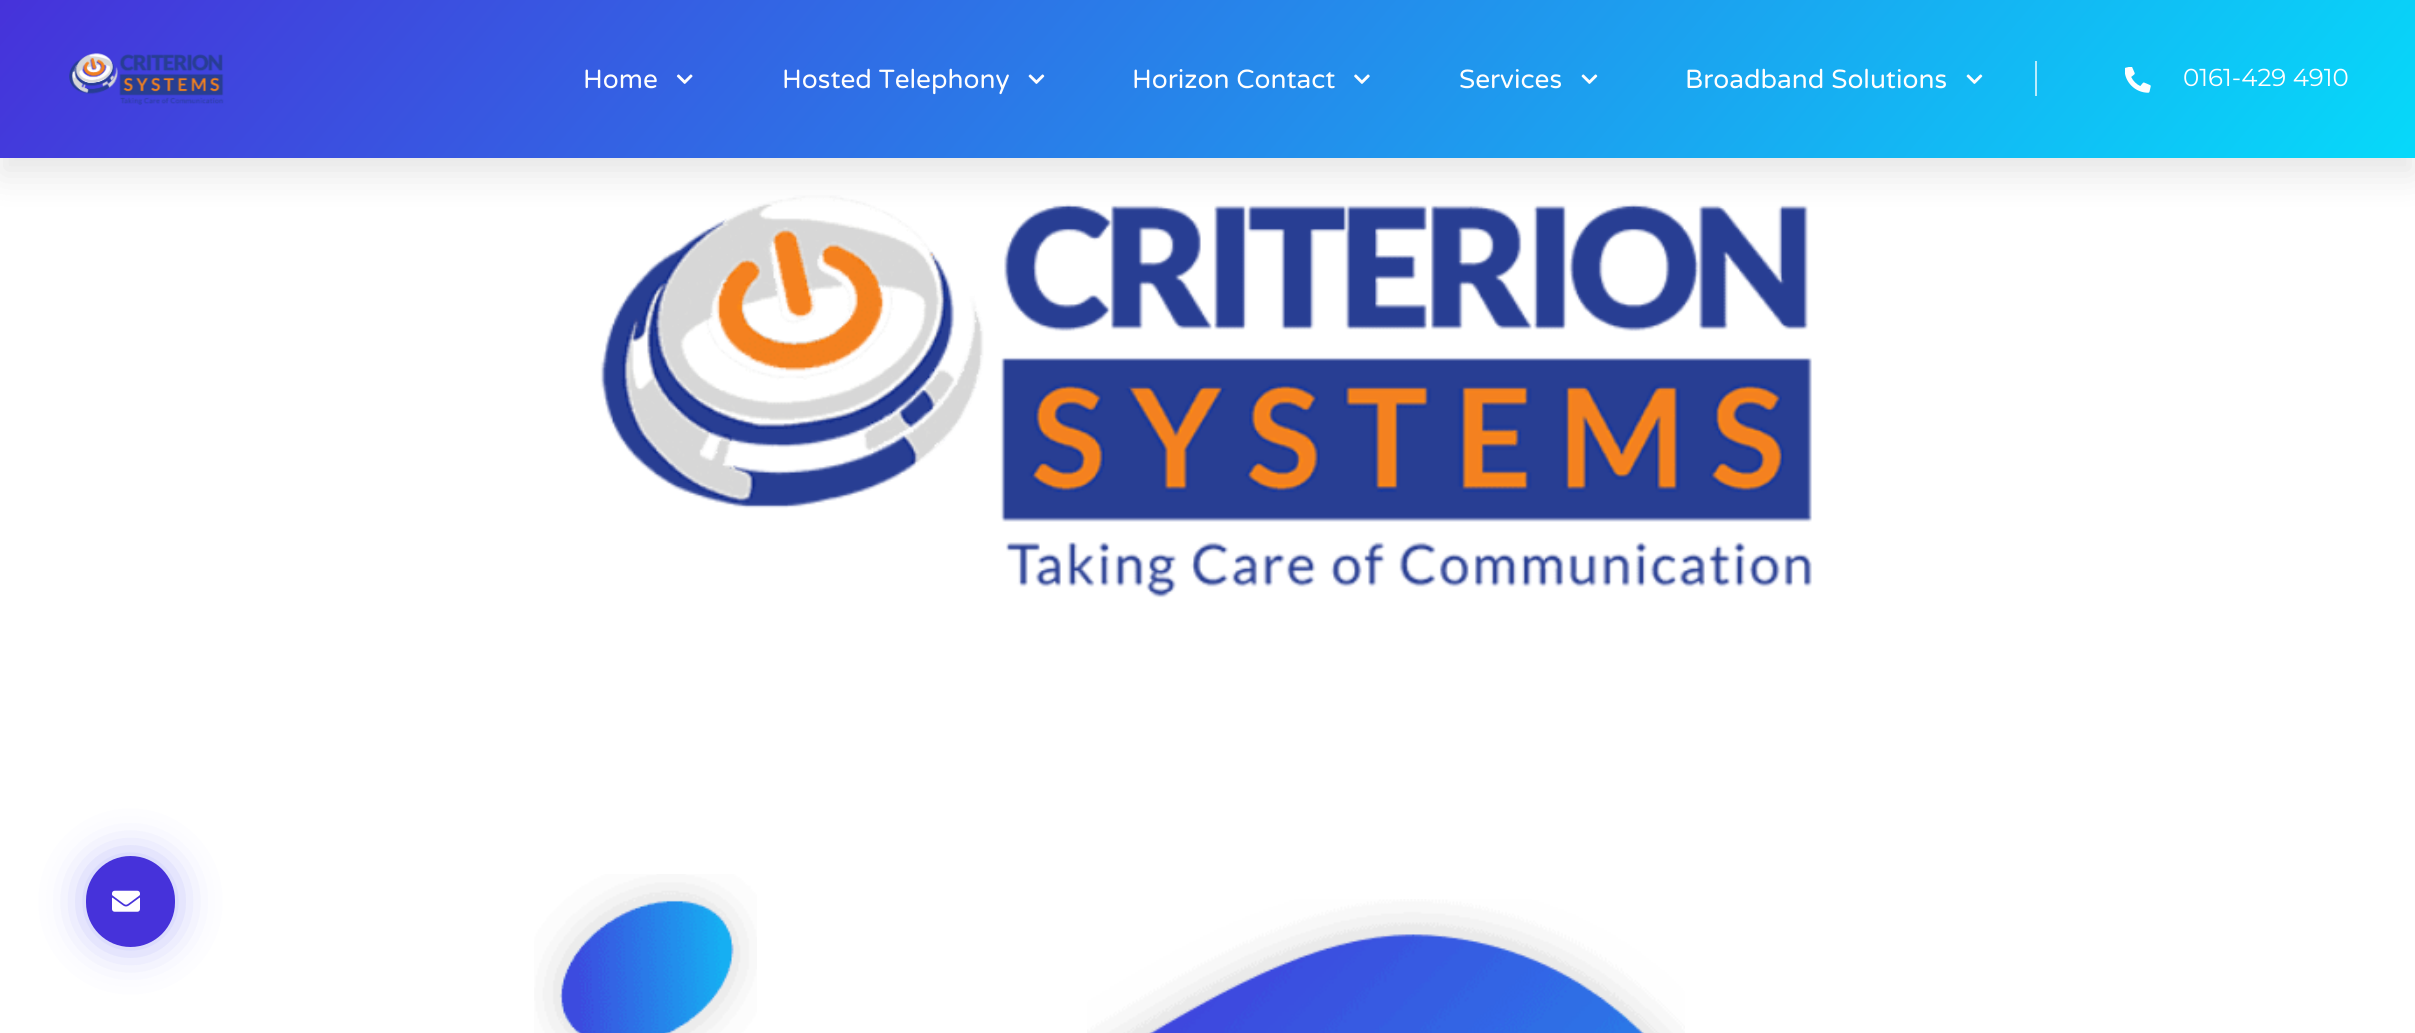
import math
import cairo

surface = cairo.ImageSurface(cairo.FORMAT_RGB24, 2415, 1033)
ctx = cairo.Context(surface)
options = cairo.FontOptions()
options.set_hint_metrics(cairo.HINT_METRICS_OFF)
options.set_hint_style(cairo.HINT_STYLE_NONE)
ctx.set_font_options(options)
ctx.set_miter_limit(4)


def set_color(code):
    ctx.set_source_rgb(*(v / 255 for v in bytes.fromhex(code[-6:])))


def draw_text(x, y, s, family, size, color, bold=False, italic=False):
    ctx.select_font_face(family, cairo.FONT_SLANT_ITALIC if italic else cairo.FONT_SLANT_NORMAL, cairo.FONT_WEIGHT_BOLD if bold else cairo.FONT_WEIGHT_NORMAL)
    ctx.set_font_size(size)
    set_color(color)
    ctx.move_to(x, y)
    ctx.show_text(s)


def fill_rect(x, y, w, h, color):
    set_color(color)
    ctx.rectangle(x, y, w, h)
    ctx.fill()


def rounded_rect(x, y, w, h, r):
    ctx.new_sub_path()
    for i, (u, v) in enumerate([(x + w - r, y + h - r), (x + r, y + h - r), (x + r, y + r), (x + w - r, y + r)]):
        ctx.arc(u, v, r, i * math.pi / 2, (i + 1) * math.pi / 2)
    ctx.close_path()


def draw_shadow(x, y, w, h, r, blur, alpha):
    ctx.push_group_with_content(cairo.CONTENT_ALPHA)
    ctx.set_operator(cairo.OPERATOR_SOURCE)
    for i in range(15, -16, -2):
        e = blur * i / 6
        if min(w, h) + 2 * e > 0:
            ctx.set_source_rgba(0, 0, 0, alpha * math.erfc((i - 1) / 8.5) / 2)
            rounded_rect(x - e, y - e, w + 2 * e, h + 2 * e, max(0, min(r + e + blur * .6, min(w, h) / 2 + e)))
            ctx.fill()
    ctx.mask(ctx.pop_group())


def draw_image(path, x, y, w, h):
    ctx.save()
    ctx.set_source_surface(cairo.ImageSurface.create_from_png(path), x, y)
    ctx.rectangle(x, y, w, h)
    ctx.fill()
    ctx.restore()


set_color("#ffffff")
ctx.paint()
draw_image("assets/img8.png", 600, 195, 1212, 403)
set_color("#000000")
draw_shadow(0, 18, 2415, 157, 0, 17.5, 0.1)
gradient = cairo.LinearGradient(460, -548, 1955, 706)
gradient.add_color_stop_rgba(0, 0.275, 0.196, 0.855, 1)
gradient.add_color_stop_rgba(1, 0.024, 0.851, 0.98, 1)
ctx.set_source(gradient)
ctx.rectangle(0, 0, 2415, 158)
ctx.fill()
draw_image("assets/img1.png", 69, 53, 155, 52)
draw_text(583, 88, "Home", "Varela Round", 26.25, "#fffefe")
draw_image("assets/img2.png", 676, 74, 17, 10)
draw_text(782, 88, "Hosted Telephony", "Varela Round", 26.25, "#fffefe")
draw_image("assets/img3.png", 1028, 74, 17, 10)
draw_text(1132, 88, "Horizon Contact", "Varela Round", 26.25, "#fffefe")
draw_image("assets/img4.png", 1354, 74, 16, 10)
draw_text(1459, 88, "Services", "Varela Round", 26.25, "#fffefe")
draw_image("assets/img5.png", 1581, 74, 17, 10)
draw_text(1685, 88, "Broadband Solutions", "Varela Round", 26.25, "#fffefe")
draw_image("assets/img6.png", 1966, 74, 17, 10)
fill_rect(2035, 61, 2, 35, "#b8ebfc")
draw_image("assets/img7.png", 2125, 67, 26, 26)
draw_text(2183, 86, "0161-429 4910", "Montserrat", 24.5, "#fffefe")
set_color("#3538f0")
draw_shadow(86, 856, 89, 91, 44.5, 22, 0.35)
set_color("#4632da")
rounded_rect(86, 856, 89, 91, 44.5)
ctx.fill()
draw_image("assets/img9.png", 112, 890, 28, 22)
draw_image("assets/img10.png", 534, 874, 223, 159)
draw_image("assets/img11.png", 1087, 899, 598, 134)
surface.write_to_png("output.png")
